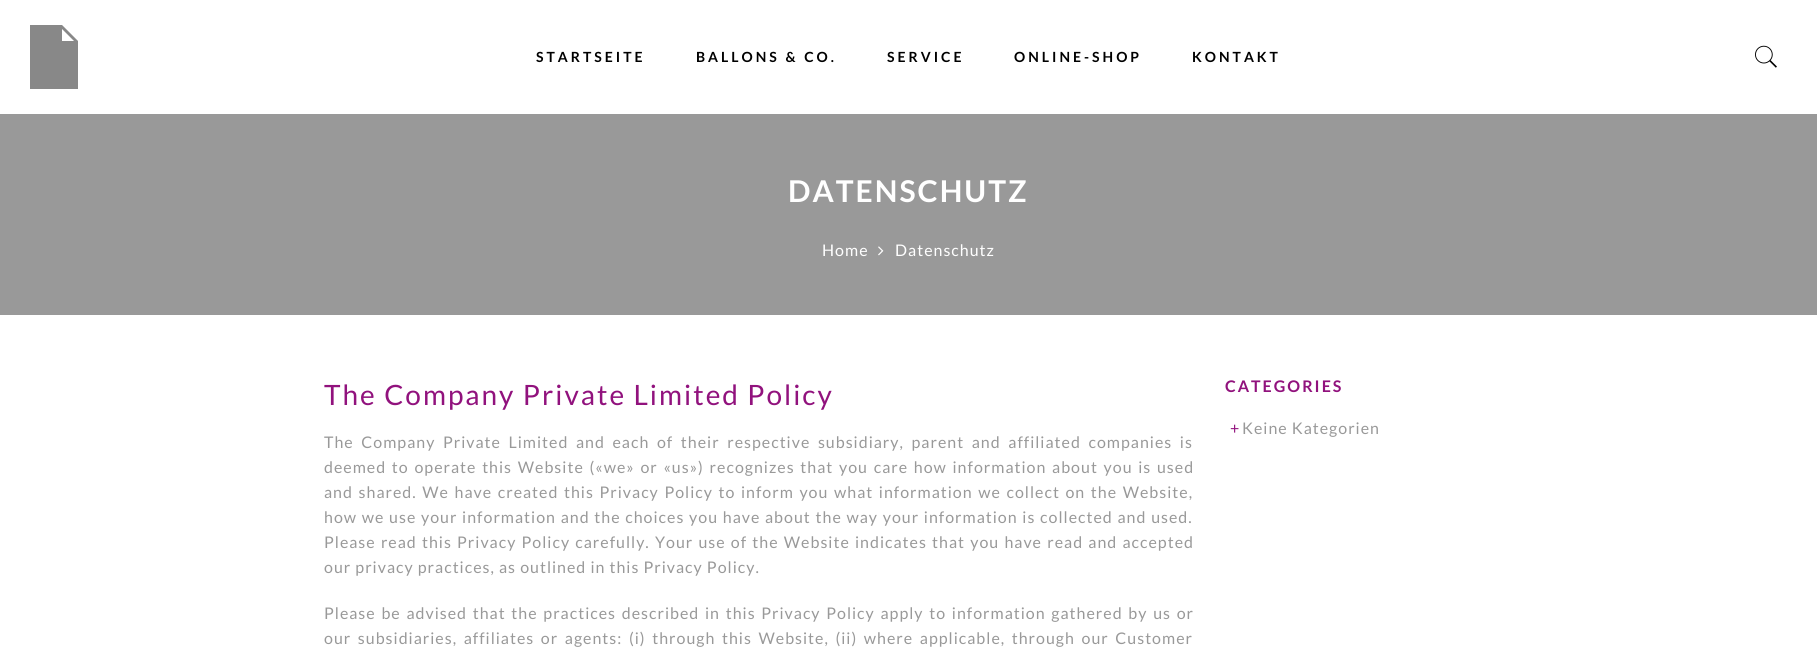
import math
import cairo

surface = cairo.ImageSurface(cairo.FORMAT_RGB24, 1817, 663)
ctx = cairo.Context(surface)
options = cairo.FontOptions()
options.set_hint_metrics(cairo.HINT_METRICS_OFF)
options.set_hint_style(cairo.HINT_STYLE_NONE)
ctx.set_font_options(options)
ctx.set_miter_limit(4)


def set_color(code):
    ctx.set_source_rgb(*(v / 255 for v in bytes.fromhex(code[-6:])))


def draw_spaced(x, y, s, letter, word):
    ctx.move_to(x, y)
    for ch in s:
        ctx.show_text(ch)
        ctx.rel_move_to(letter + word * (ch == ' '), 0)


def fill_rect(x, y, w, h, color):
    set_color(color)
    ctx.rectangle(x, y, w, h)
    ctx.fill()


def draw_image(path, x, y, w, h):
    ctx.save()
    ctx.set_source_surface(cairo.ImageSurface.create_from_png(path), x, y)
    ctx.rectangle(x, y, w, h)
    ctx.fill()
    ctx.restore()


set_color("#ffffff")
ctx.paint()
set_color("#888888")
ctx.new_path()
ctx.move_to(62, 25)
ctx.line_to(30, 25)
ctx.line_to(30, 89)
ctx.line_to(78, 89)
ctx.line_to(78, 41)
ctx.close_path()
ctx.move_to(62, 41)
ctx.line_to(62, 29)
ctx.line_to(74, 41)
ctx.close_path()
ctx.fill()
ctx.select_font_face("Lato", cairo.FONT_SLANT_NORMAL, cairo.FONT_WEIGHT_BOLD)
ctx.set_font_size(14)
set_color("#000000")
draw_spaced(536, 62, "STARTSEITE", 3, 0)
draw_spaced(696, 62, "BALLONS & CO.", 3, 0)
draw_spaced(887, 62, "SERVICE", 3, 0)
draw_spaced(1014, 62, "ONLINE-SHOP", 3, 0)
draw_spaced(1192, 62, "KONTAKT", 3, 0)
draw_image("assets/img1.png", 1755, 45, 22, 23)
fill_rect(0, 114, 1817, 201, "#999999")
ctx.set_font_size(30)
set_color("#ffffff")
draw_spaced(788, 202, "DATENSCHUTZ", 2, 0)
ctx.select_font_face("Lato")
ctx.set_font_size(16)
draw_spaced(822, 256, "Home", 1, 0)
draw_image("assets/img2.png", 878, 246, 6, 10)
draw_spaced(895, 256, "Datenschutz", 1, 0)
ctx.set_font_size(28)
set_color("#91127d")
draw_spaced(324, 405, "The Company Private Limited Policy", 2, 0)
ctx.set_font_size(16)
set_color("#999999")
draw_spaced(324, 448, "The Company Private Limited and each of their respective subsidiary, parent and affiliated companies is", 1, 3.5)
draw_spaced(324, 473, "deemed to operate this Website («we» or «us») recognizes that you care how information about you is used", 1, 1.6)
draw_spaced(324, 498, "and shared. We have created this Privacy Policy to inform you what information we collect on the Website,", 1, 1.5)
draw_spaced(324, 523, "how we use your information and the choices you have about the way your information is collected and used.", 1, 0.6)
draw_spaced(324, 548, "Please read this Privacy Policy carefully. Your use of the Website indicates that you have read and accepted", 1, 1.1)
draw_spaced(324, 573, "our privacy practices, as outlined in this Privacy Policy.", 1, 0)
draw_spaced(324, 619, "Please be advised that the practices described in this Privacy Policy apply to information gathered by us or", 1, 1.6)
draw_spaced(324, 644, "our subsidiaries, affiliates or agents: (i) through this Website, (ii) where applicable, through our Customer", 1, 2.5)
ctx.select_font_face("Lato", cairo.FONT_SLANT_NORMAL, cairo.FONT_WEIGHT_BOLD)
set_color("#91127d")
draw_spaced(1225, 392, "CATEGORIES", 2, 0)
ctx.select_font_face("Lato")
draw_spaced(1230, 434, "+", 1, 0)
set_color("#999999")
draw_spaced(1242, 434, "Keine Kategorien", 1, 0)
surface.write_to_png("output.png")
